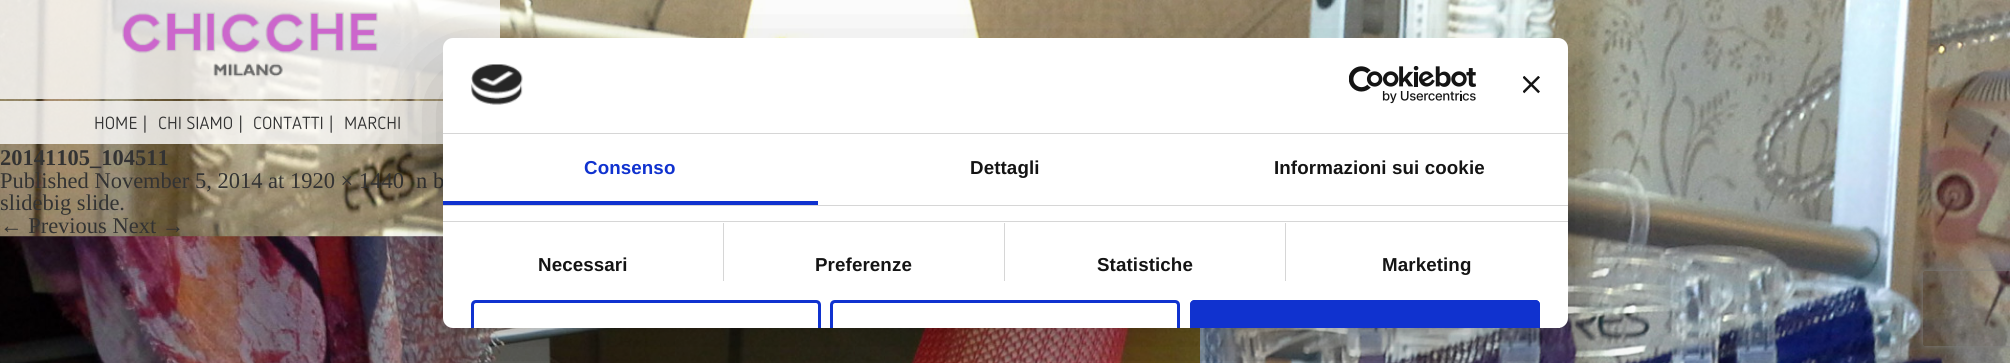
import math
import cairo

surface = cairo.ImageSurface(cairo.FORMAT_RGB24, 2010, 363)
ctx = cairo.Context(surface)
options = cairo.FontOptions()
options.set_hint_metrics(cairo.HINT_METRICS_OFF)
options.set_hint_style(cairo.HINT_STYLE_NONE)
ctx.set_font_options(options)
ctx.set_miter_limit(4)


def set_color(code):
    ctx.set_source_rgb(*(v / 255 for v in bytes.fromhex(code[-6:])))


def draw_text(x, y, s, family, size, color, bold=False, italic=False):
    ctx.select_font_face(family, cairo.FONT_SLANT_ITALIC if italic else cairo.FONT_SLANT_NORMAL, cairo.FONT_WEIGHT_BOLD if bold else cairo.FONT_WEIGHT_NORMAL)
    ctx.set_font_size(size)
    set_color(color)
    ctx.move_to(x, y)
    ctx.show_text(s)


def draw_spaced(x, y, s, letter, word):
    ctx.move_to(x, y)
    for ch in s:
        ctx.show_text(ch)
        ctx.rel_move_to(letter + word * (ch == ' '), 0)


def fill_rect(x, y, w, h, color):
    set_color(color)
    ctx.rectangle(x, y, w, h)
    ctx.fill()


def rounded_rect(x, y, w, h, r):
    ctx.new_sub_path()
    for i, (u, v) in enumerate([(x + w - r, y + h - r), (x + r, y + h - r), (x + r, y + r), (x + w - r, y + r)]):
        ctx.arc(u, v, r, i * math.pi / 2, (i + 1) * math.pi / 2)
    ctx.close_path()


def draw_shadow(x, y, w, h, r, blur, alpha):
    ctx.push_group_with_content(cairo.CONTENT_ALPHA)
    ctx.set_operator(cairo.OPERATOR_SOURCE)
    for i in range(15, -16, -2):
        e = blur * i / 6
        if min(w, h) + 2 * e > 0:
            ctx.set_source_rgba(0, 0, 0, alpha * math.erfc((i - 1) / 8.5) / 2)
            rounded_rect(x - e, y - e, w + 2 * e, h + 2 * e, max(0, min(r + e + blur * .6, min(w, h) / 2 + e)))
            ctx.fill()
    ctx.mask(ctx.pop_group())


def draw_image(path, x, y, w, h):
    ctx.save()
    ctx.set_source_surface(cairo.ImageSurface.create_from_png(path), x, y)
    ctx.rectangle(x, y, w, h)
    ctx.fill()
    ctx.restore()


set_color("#ffffff")
ctx.paint()
draw_image("assets/img1.png", 0, 0, 2010, 363)
ctx.set_source_rgba(1, 1, 1, 0.8)
ctx.rectangle(0, 0, 500, 99)
ctx.fill()
draw_image("assets/img2.png", 122, 12, 256, 65)
ctx.rectangle(0, 101, 443, 43)
ctx.fill()
draw_text(94, 129, "HOME |", "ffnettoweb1", 17.5, "#333333")
draw_text(158, 129, "CHI SIAMO |", "ffnettoweb1", 17.5, "#333333")
draw_text(253, 129, "CONTATTI |", "ffnettoweb1", 17.5, "#333333")
draw_text(344, 129, "MARCHI", "ffnettoweb1", 17.5, "#333333")
draw_text(0, 165, "20141105_104511", "Liberation Serif", 22.5, "#333333", bold=True)
draw_text(0, 188, "Published November 5, 2014 at 1920 × 1440", "Liberation Serif", 22.5, "#333333")
draw_text(416, 188, "n b", "Liberation Serif", 22.5, "#333333")
draw_text(0, 210, "slidebig slide.", "Liberation Serif", 22.5, "#333333")
draw_text(0, 233, "← Previous Next →", "Liberation Serif", 22.5, "#333333")
draw_image("assets/img3.png", 0, 236, 1200, 127)
set_color("#000000")
draw_shadow(443, 78, 1125, 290, 10, 42.5, 0.3)
set_color("#ffffff")
rounded_rect(443, 38, 1125, 290, 10)
ctx.fill()
fill_rect(443, 133, 1125, 1, "#d6d6d6")
draw_image("assets/img4.png", 471, 64, 52, 41)
draw_image("assets/img5.png", 1349, 66, 127, 38)
draw_image("assets/img6.png", 1523, 76, 17, 18)
fill_rect(443, 205, 1125, 1, "#d6d6d6")
fill_rect(443, 201, 375, 4, "#1032cf")
ctx.select_font_face("Liberation Sans", cairo.FONT_SLANT_NORMAL, cairo.FONT_WEIGHT_BOLD)
ctx.set_font_size(18.75)
draw_spaced(584, 174, "Consenso", 0.1, 0)
set_color("#141414")
draw_spaced(970, 174, "Dettagli", 0.1, 0)
draw_spaced(1274, 174, "Informazioni sui cookie", 0.1, 0)
fill_rect(443, 221, 1125, 1, "#d6d6d6")
fill_rect(723, 223, 1, 58, "#d6d6d6")
set_color("#141414")
draw_spaced(538, 271, "Necessari", 0.1, 0)
fill_rect(1004, 223, 1, 58, "#d6d6d6")
set_color("#141414")
draw_spaced(815, 271, "Preferenze", 0.1, 0)
fill_rect(1285, 223, 1, 58, "#d6d6d6")
set_color("#141414")
draw_spaced(1097, 271, "Statistiche", 0.1, 0)
draw_spaced(1382, 271, "Marketing", 0.1, 0)
set_color("#1032cf")
ctx.new_path()
ctx.move_to(476, 300)
ctx.curve_to(473, 300, 471, 302, 471, 305)
ctx.line_to(471, 328)
ctx.line_to(474, 328)
ctx.line_to(474, 305)
ctx.curve_to(474, 304, 475, 303, 476, 303)
ctx.line_to(816, 303)
ctx.curve_to(817, 303, 818, 304, 818, 305)
ctx.line_to(818, 328)
ctx.line_to(821, 328)
ctx.line_to(821, 305)
ctx.curve_to(821, 302, 819, 300, 816, 300)
ctx.close_path()
ctx.fill()
ctx.new_path()
ctx.move_to(835, 300)
ctx.curve_to(832, 300, 830, 302, 830, 305)
ctx.line_to(830, 328)
ctx.line_to(833, 328)
ctx.line_to(833, 305)
ctx.curve_to(833, 304, 834, 303, 835, 303)
ctx.line_to(1175, 303)
ctx.curve_to(1176, 303, 1177, 304, 1177, 305)
ctx.line_to(1177, 328)
ctx.line_to(1180, 328)
ctx.line_to(1180, 305)
ctx.curve_to(1180, 302, 1178, 300, 1175, 300)
ctx.close_path()
ctx.fill()
ctx.new_path()
ctx.move_to(1195, 300)
ctx.line_to(1535, 300)
ctx.curve_to(1538, 300, 1540, 302, 1540, 305)
ctx.line_to(1540, 328)
ctx.line_to(1190, 328)
ctx.line_to(1190, 305)
ctx.curve_to(1190, 302, 1192, 300, 1195, 300)
ctx.close_path()
ctx.fill()
ctx.new_path()
ctx.move_to(1195, 300)
ctx.curve_to(1192, 300, 1190, 302, 1190, 305)
ctx.line_to(1190, 328)
ctx.line_to(1193, 328)
ctx.line_to(1193, 305)
ctx.curve_to(1193, 304, 1194, 303, 1195, 303)
ctx.line_to(1535, 303)
ctx.curve_to(1536, 303, 1537, 304, 1537, 305)
ctx.line_to(1537, 328)
ctx.line_to(1540, 328)
ctx.line_to(1540, 305)
ctx.curve_to(1540, 302, 1538, 300, 1535, 300)
ctx.close_path()
ctx.fill()
fill_rect(1558, 327, 2, 1, "#ffffff")
ctx.save()
ctx.set_fill_rule(cairo.FILL_RULE_EVEN_ODD)
ctx.new_path()
ctx.move_to(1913, 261)
ctx.line_to(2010, 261)
ctx.line_to(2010, 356)
ctx.line_to(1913, 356)
ctx.close_path()
ctx.move_to(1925.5, 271)
ctx.line_to(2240.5, 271)
ctx.curve_to(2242, 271, 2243, 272, 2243, 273.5)
ctx.line_to(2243, 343.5)
ctx.curve_to(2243, 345, 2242, 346, 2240.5, 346)
ctx.line_to(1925.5, 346)
ctx.curve_to(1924, 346, 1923, 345, 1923, 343.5)
ctx.line_to(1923, 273.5)
ctx.curve_to(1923, 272, 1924, 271, 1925.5, 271)
ctx.close_path()
ctx.clip()
set_color("#808080")
draw_shadow(1923, 271, 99, 75, 2.5, 3, 1)
ctx.restore()
surface.write_to_png("output.png")
